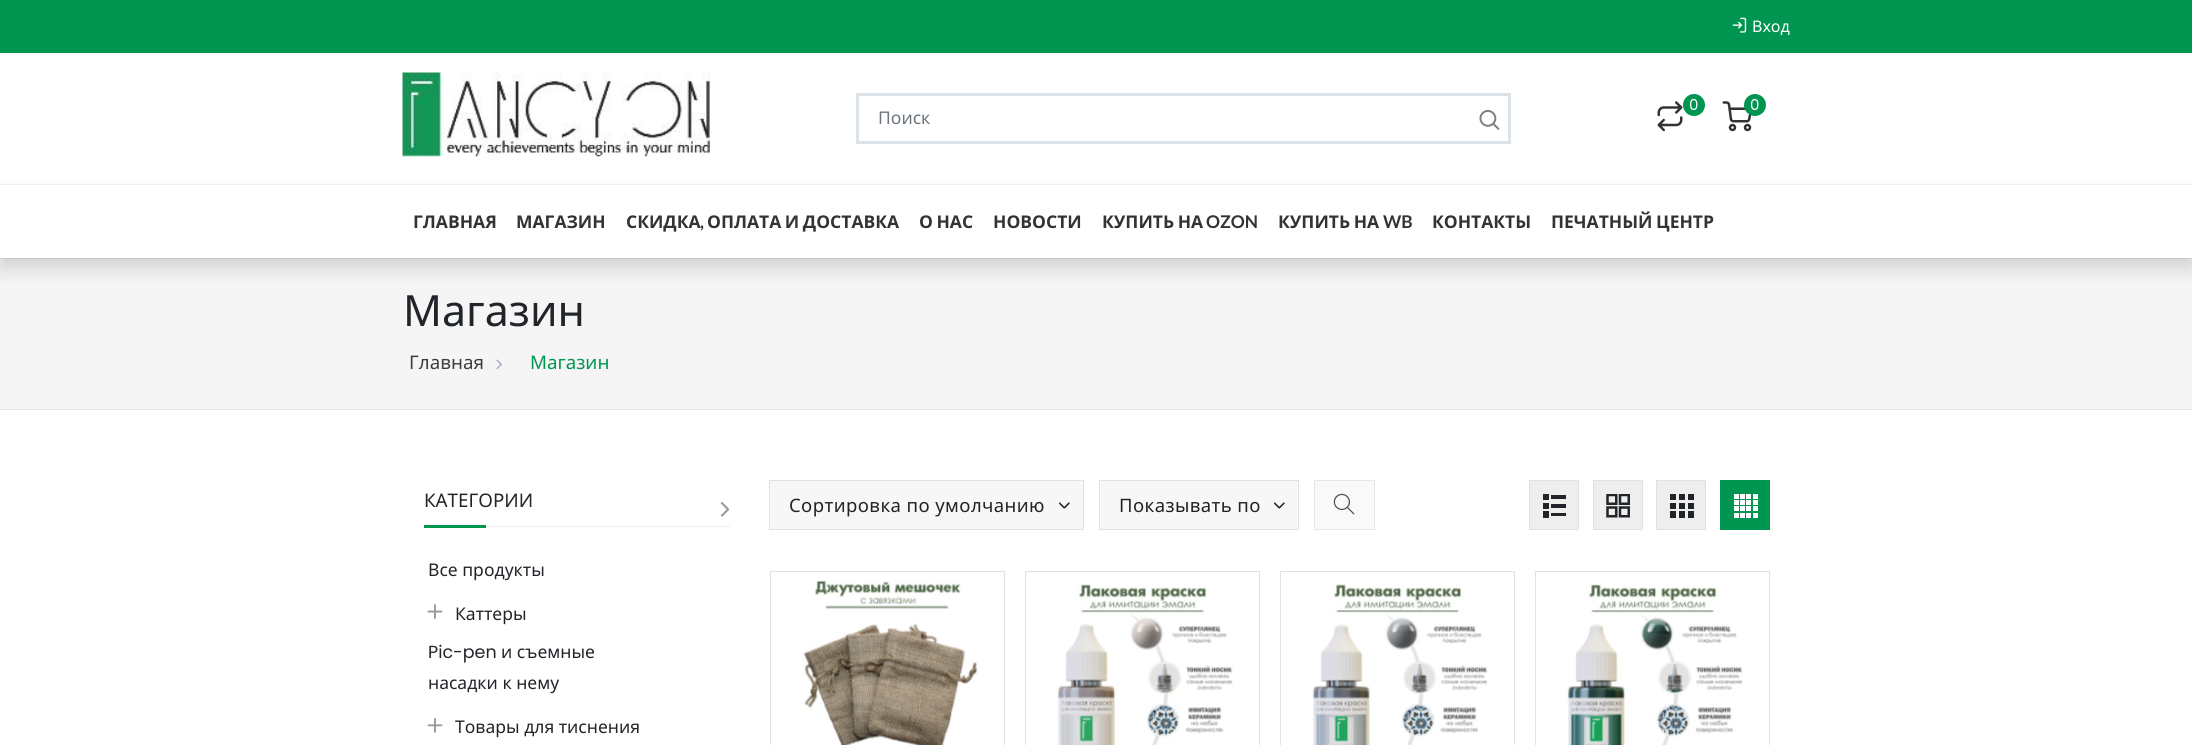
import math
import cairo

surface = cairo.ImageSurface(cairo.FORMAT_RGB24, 2192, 745)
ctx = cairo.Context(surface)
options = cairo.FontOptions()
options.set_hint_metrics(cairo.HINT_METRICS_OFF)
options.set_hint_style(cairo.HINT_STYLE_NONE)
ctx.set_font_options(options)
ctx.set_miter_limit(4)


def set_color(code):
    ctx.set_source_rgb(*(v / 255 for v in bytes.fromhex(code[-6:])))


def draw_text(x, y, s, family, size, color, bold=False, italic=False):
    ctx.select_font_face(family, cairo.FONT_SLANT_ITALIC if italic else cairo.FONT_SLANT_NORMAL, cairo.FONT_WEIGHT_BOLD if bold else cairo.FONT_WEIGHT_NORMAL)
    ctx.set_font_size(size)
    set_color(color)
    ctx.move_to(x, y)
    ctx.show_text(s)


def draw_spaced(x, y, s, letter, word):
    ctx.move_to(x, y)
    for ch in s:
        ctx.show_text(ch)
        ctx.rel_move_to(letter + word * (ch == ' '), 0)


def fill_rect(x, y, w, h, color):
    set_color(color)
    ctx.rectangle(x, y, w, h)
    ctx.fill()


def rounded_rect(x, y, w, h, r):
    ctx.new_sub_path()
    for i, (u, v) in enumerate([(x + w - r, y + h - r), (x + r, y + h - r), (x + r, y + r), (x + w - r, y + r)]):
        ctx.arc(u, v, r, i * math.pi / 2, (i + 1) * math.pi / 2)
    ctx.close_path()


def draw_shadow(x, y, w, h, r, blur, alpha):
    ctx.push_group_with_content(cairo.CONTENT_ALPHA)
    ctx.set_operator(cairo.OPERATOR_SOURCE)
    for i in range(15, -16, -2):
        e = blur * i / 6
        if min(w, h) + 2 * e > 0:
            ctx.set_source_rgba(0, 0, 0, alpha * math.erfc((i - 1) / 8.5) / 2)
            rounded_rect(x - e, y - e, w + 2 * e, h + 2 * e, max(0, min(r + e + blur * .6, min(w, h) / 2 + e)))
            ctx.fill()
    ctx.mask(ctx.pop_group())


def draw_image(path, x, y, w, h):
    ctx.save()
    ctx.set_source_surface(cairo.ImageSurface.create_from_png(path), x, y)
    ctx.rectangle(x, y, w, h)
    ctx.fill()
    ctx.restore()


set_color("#ffffff")
ctx.paint()
fill_rect(0, 0, 2192, 53, "#009551")
draw_image("assets/img1.png", 1732, 17, 15, 16)
draw_text(1752, 32, "Вход", "Noto Sans", 16, "#ffffff")
fill_rect(0, 184, 2192, 1, "#f5f5f5")
draw_image("assets/img2.png", 402, 72, 308, 85)
draw_image("assets/img3.png", 1657, 101, 26, 31)
set_color("#009551")
ctx.arc(1694, 105, 11, 0, 2 * math.pi)
ctx.fill()
draw_text(1689, 110, "0", "Poppins", 15, "#ffffff")
draw_image("assets/img4.png", 1722, 101, 30, 31)
set_color("#009551")
ctx.arc(1755, 105, 11, 0, 2 * math.pi)
ctx.fill()
draw_text(1750, 110, "0", "Poppins", 15, "#ffffff")
ctx.rectangle(857.5, 94.5, 652, 48)
set_color("#dbe2e8")
ctx.set_line_width(3)
ctx.stroke()
draw_text(878, 124, "Поиск", "Noto Sans", 17.5, "#6c757d")
draw_image("assets/img5.png", 1479, 110, 21, 20)
fill_rect(0, 259, 2192, 150, "#f5f5f5")
fill_rect(0, 258, 2192, 1, "#dee2e6")
set_color("#000000")
draw_shadow(0, 195, 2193, 73, 0, 10, 0.15)
fill_rect(0, 185, 2192, 73, "#ffffff")
draw_text(413, 228, "ГЛАВНАЯ", "Noto Sans", 17.5, "#333333", bold=True)
draw_text(516, 228, "МАГАЗИН", "Noto Sans", 17.5, "#333333", bold=True)
draw_text(626, 228, "СКИДКА", "Noto Sans", 17.5, "#333333", bold=True)
draw_text(700, 228, ",", "Lato", 17.5, "#333333", bold=True)
ctx.select_font_face("Noto Sans", cairo.FONT_SLANT_NORMAL, cairo.FONT_WEIGHT_BOLD)
draw_spaced(707, 228, "ОПЛАТА И ДОСТАВКА", 0, -1)
draw_spaced(919, 228, "О НАС", 0, -1)
draw_text(993, 228, "НОВОСТИ", "Noto Sans", 17.5, "#333333", bold=True)
draw_spaced(1102, 228, "КУПИТЬ НА", 0, -1)
draw_text(1206, 228, "OZON", "Lato", 17.5, "#333333", bold=True)
ctx.select_font_face("Noto Sans", cairo.FONT_SLANT_NORMAL, cairo.FONT_WEIGHT_BOLD)
draw_spaced(1278, 228, "КУПИТЬ НА", 0, -1)
draw_text(1383, 228, "WB", "Lato", 17.5, "#333333", bold=True)
draw_text(1432, 228, "КОНТАКТЫ", "Noto Sans", 17.5, "#333333", bold=True)
draw_spaced(1551, 228, "ПЕЧАТНЫЙ ЦЕНТР", 0, -1)
fill_rect(0, 409, 2192, 1, "#dee2e6")
draw_text(403, 326, "Магазин", "Noto Sans", 43, "#212529")
draw_text(409, 369, "Главная", "Noto Sans", 18.75, "#3d3d3d")
draw_image("assets/img6.png", 496, 359, 6, 11)
draw_text(530, 369, "Магазин", "Noto Sans", 18.75, "#009551")
fill_rect(486, 526, 244, 1, "#eeeeee")
draw_text(424, 507, "КАТЕГОРИИ", "Noto Sans", 18.75, "#212529")
draw_image("assets/img7.png", 720, 502, 10, 15)
fill_rect(424, 525, 62, 3, "#009551")
draw_text(428, 576, "Все продукты", "Noto Sans", 17.5, "#212529")
draw_image("assets/img8.png", 427, 604, 16, 15)
draw_text(455, 620, "Каттеры", "Noto Sans", 17.5, "#212529")
draw_text(428, 658, "Pic-pen", "Poppins", 17.5, "#212529")
draw_text(501, 658, "и съемные", "Noto Sans", 17.5, "#212529")
draw_text(428, 689, "насадки к нему", "Noto Sans", 17.5, "#212529")
draw_image("assets/img9.png", 427, 718, 16, 15)
draw_text(455, 733, "Товары для тиснения", "Noto Sans", 17.5, "#212529")
set_color("#f7f7f7")
ctx.rectangle(769.5, 480.5, 314, 49)
ctx.fill_preserve()
set_color("#dee2e6")
ctx.set_line_width(1)
ctx.stroke()
ctx.set_font_size(18.5)
set_color("#222222")
draw_spaced(789, 512, "Сортировка по умолчанию", 0.4, 0)
draw_image("assets/img10.png", 1058, 502, 12, 7)
set_color("#f7f7f7")
ctx.rectangle(1099.5, 480.5, 199, 49)
ctx.fill_preserve()
set_color("#dee2e6")
ctx.stroke()
set_color("#222222")
draw_spaced(1119, 512, "Показывать по", 0.4, 0)
draw_image("assets/img10.png", 1273, 502, 12, 7)
set_color("#f9f9f9")
ctx.rectangle(1314.5, 480.5, 60, 49)
ctx.fill_preserve()
set_color("#e5e8eb")
ctx.stroke()
draw_image("assets/img11.png", 1333, 493, 22, 22)
set_color("#eeeeee")
ctx.rectangle(1529.5, 480.5, 49, 49)
ctx.fill_preserve()
set_color("#dee2e6")
ctx.stroke()
draw_image("assets/img12.png", 1543, 494, 23, 24)
set_color("#eeeeee")
ctx.rectangle(1593.5, 480.5, 49, 49)
ctx.fill_preserve()
set_color("#dee2e6")
ctx.stroke()
draw_image("assets/img13.png", 1606, 494, 24, 24)
set_color("#eeeeee")
ctx.rectangle(1656.5, 480.5, 49, 49)
ctx.fill_preserve()
set_color("#dee2e6")
ctx.stroke()
draw_image("assets/img14.png", 1670, 494, 24, 24)
fill_rect(1720, 480, 50, 50, "#009551")
draw_image("assets/img15.png", 1734, 494, 24, 24)
ctx.rectangle(770.5, 571.5, 234, 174)
set_color("#dee2e6")
ctx.stroke()
draw_image("assets/img16.png", 803, 580, 175, 165)
ctx.rectangle(1025.5, 571.5, 234, 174)
ctx.stroke()
draw_image("assets/img17.png", 1057, 584, 176, 161)
ctx.rectangle(1280.5, 571.5, 234, 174)
ctx.stroke()
draw_image("assets/img18.png", 1312, 584, 176, 161)
ctx.rectangle(1535.5, 571.5, 234, 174)
ctx.stroke()
draw_image("assets/img19.png", 1567, 584, 176, 161)
surface.write_to_png("output.png")
